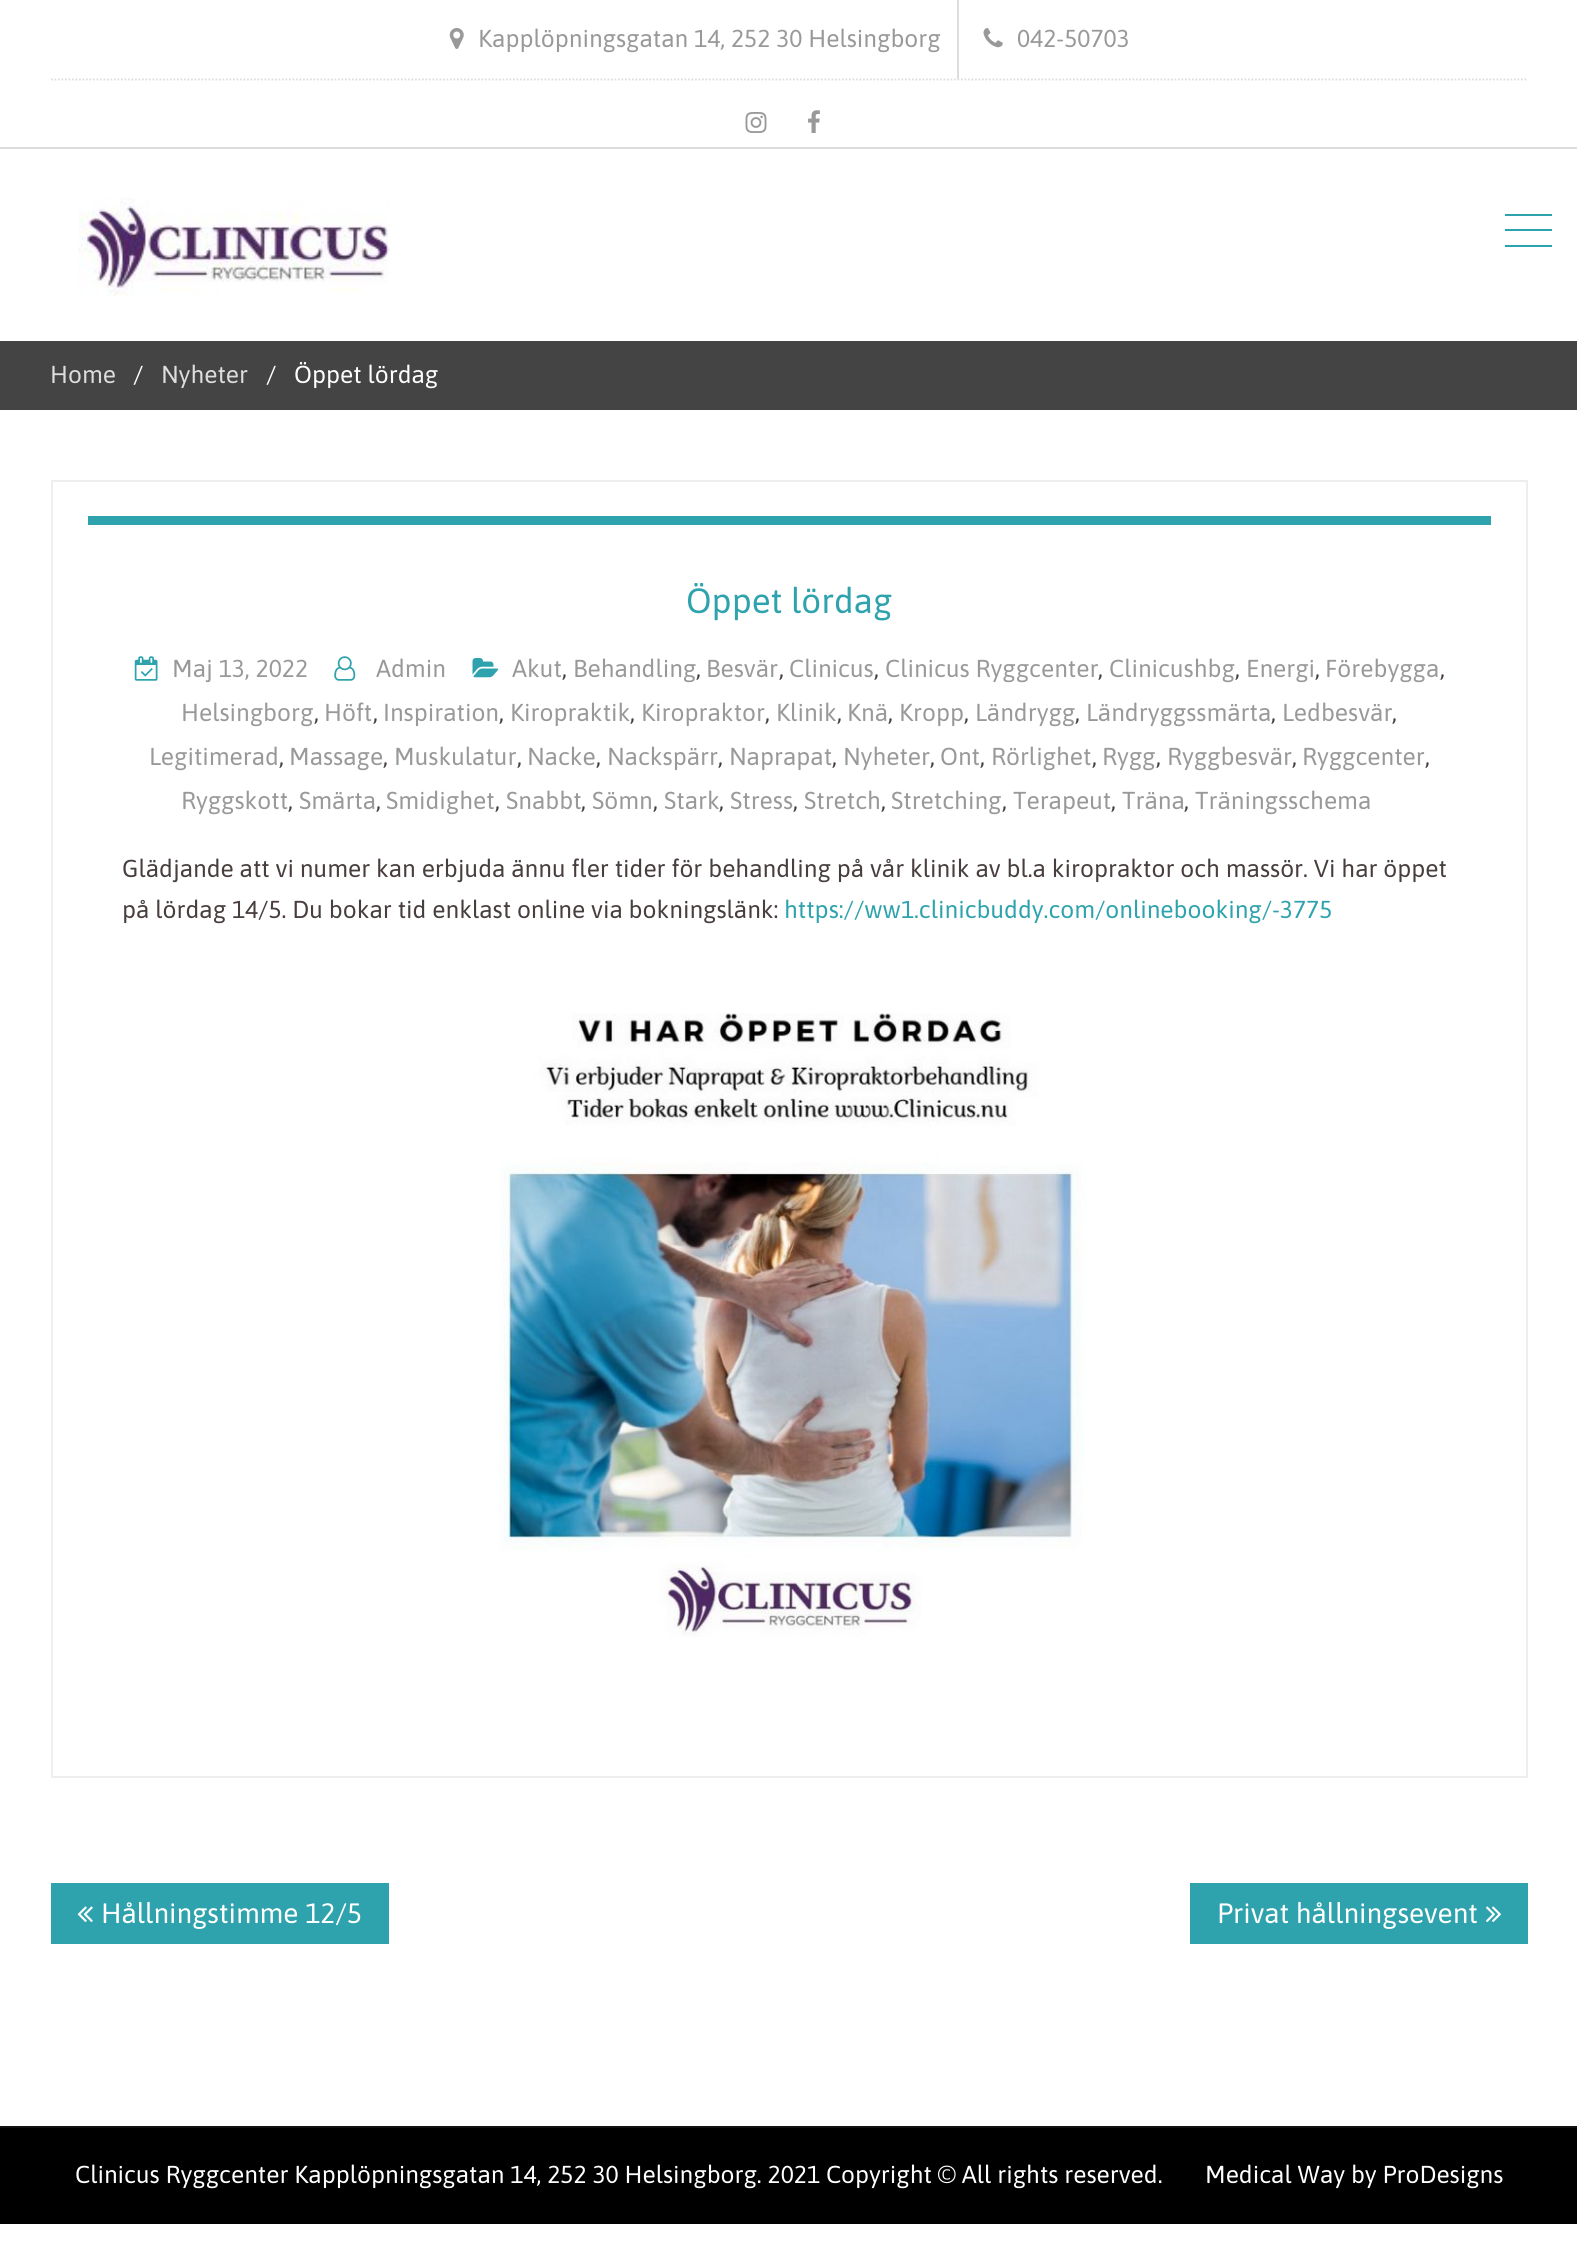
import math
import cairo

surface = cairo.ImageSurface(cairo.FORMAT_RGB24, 1577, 2250)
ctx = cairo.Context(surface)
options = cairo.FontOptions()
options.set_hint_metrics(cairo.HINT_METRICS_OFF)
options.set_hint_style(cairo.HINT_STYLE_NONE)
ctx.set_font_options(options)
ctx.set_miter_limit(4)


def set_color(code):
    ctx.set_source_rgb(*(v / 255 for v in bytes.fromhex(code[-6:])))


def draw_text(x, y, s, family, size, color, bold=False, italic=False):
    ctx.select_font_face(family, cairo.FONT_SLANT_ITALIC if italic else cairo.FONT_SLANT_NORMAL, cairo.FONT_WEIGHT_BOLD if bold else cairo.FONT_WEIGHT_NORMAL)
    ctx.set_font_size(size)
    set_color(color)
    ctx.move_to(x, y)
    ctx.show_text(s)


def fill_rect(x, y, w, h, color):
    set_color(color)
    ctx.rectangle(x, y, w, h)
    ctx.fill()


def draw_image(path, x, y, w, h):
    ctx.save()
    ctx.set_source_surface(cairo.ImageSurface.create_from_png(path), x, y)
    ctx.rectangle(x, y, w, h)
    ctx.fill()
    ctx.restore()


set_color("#ffffff")
ctx.paint()
fill_rect(0, 147, 1577, 2, "#dddddd")
fill_rect(957, 0, 2, 79, "#dddddd")
draw_image("assets/img1.png", 449, 28, 15, 21)
draw_text(478, 47, "Kapplöpningsgatan 14, 252 30 Helsingborg", "Asap", 24.5, "#999999")
draw_image("assets/img2.png", 983, 28, 20, 20)
draw_text(1017, 47, "042-50703", "Asap", 24.5, "#999999")
ctx.new_path()
ctx.move_to(51, 79.5)
ctx.line_to(1528, 79.5)
set_color("#dddddd")
ctx.set_line_width(1.8)
ctx.set_dash([1.75, 1.75])
ctx.stroke()
draw_image("assets/img3.png", 745, 112, 22, 21)
draw_image("assets/img4.png", 808, 110, 12, 23)
draw_image("assets/img5.png", 78, 198, 312, 98)
fill_rect(1505, 214, 47, 2, "#2fa3ad")
fill_rect(1505, 229, 47, 2, "#2fa3ad")
fill_rect(1505, 245, 47, 2, "#2fa3ad")
fill_rect(0, 341, 1577, 69, "#444444")
draw_text(50, 383, "Home", "Asap", 24.5, "#dddddd")
draw_text(133, 383, "/", "Asap", 24.5, "#ffffff")
draw_text(161, 383, "Nyheter", "Asap", 24.5, "#dddddd")
draw_text(266, 383, "/", "Asap", 24.5, "#ffffff")
draw_text(294, 383, "Öppet lördag", "Asap", 24.5, "#ffffff")
ctx.rectangle(52, 481, 1475, 1296)
set_color("#eeeeee")
ctx.set_line_width(2)
ctx.set_dash([])
ctx.stroke()
fill_rect(88, 516, 1403, 9, "#2fa3ad")
draw_text(686, 613, "Öppet lördag", "Asap", 35, "#2fa3ad")
draw_image("assets/img6.png", 472, 658, 27, 20)
draw_text(512, 677, "Akut", "Asap", 24.5, "#999999")
draw_text(562, 677, ",", "Asap", 24.5, "#483e3e")
draw_text(573, 677, "Behandling", "Asap", 24.5, "#999999")
draw_text(696, 677, ",", "Asap", 24.5, "#483e3e")
draw_text(706, 677, "Besvär", "Asap", 24.5, "#999999")
draw_text(779, 677, ",", "Asap", 24.5, "#483e3e")
draw_text(789, 677, "Clinicus", "Asap", 24.5, "#999999")
draw_text(874, 677, ",", "Asap", 24.5, "#483e3e")
draw_text(885, 677, "Clinicus Ryggcenter", "Asap", 24.5, "#999999")
draw_text(1098, 677, ",", "Asap", 24.5, "#483e3e")
draw_text(1109, 677, "Clinicushbg", "Asap", 24.5, "#999999")
draw_text(1235, 677, ",", "Asap", 24.5, "#483e3e")
draw_text(1246, 677, "Energi", "Asap", 24.5, "#999999")
draw_text(1315, 677, ",", "Asap", 24.5, "#483e3e")
draw_text(1325, 677, "Förebygga", "Asap", 24.5, "#999999")
draw_text(1440, 677, ",", "Asap", 24.5, "#483e3e")
draw_text(181, 721, "Helsingborg", "Asap", 24.5, "#999999")
draw_text(314, 721, ",", "Asap", 24.5, "#483e3e")
draw_text(324, 721, "Höft", "Asap", 24.5, "#999999")
draw_text(373, 721, ",", "Asap", 24.5, "#483e3e")
draw_text(383, 721, "Inspiration", "Asap", 24.5, "#999999")
draw_text(499, 721, ",", "Asap", 24.5, "#483e3e")
draw_text(510, 721, "Kiropraktik", "Asap", 24.5, "#999999")
draw_text(630, 721, ",", "Asap", 24.5, "#483e3e")
draw_text(641, 721, "Kiropraktor", "Asap", 24.5, "#999999")
draw_text(765, 721, ",", "Asap", 24.5, "#483e3e")
draw_text(776, 721, "Klinik", "Asap", 24.5, "#999999")
draw_text(837, 721, ",", "Asap", 24.5, "#483e3e")
draw_text(847, 721, "Knä", "Asap", 24.5, "#999999")
draw_text(888, 721, ",", "Asap", 24.5, "#483e3e")
draw_text(899, 721, "Kropp", "Asap", 24.5, "#999999")
draw_text(964, 721, ",", "Asap", 24.5, "#483e3e")
draw_text(975, 721, "Ländrygg", "Asap", 24.5, "#999999")
draw_text(1075, 721, ",", "Asap", 24.5, "#483e3e")
draw_text(1086, 721, "Ländryggssmärta", "Asap", 24.5, "#999999")
draw_text(1271, 721, ",", "Asap", 24.5, "#483e3e")
draw_text(1282, 721, "Ledbesvär", "Asap", 24.5, "#999999")
draw_text(1392, 721, ",", "Asap", 24.5, "#483e3e")
draw_text(149, 765, "Legitimerad", "Asap", 24.5, "#999999")
draw_text(279, 765, ",", "Asap", 24.5, "#483e3e")
draw_text(289, 765, "Massage", "Asap", 24.5, "#999999")
draw_text(383, 765, ",", "Asap", 24.5, "#483e3e")
draw_text(394, 765, "Muskulatur", "Asap", 24.5, "#999999")
draw_text(517, 765, ",", "Asap", 24.5, "#483e3e")
draw_text(527, 765, "Nacke", "Asap", 24.5, "#999999")
draw_text(596, 765, ",", "Asap", 24.5, "#483e3e")
draw_text(607, 765, "Nackspärr", "Asap", 24.5, "#999999")
draw_text(718, 765, ",", "Asap", 24.5, "#483e3e")
draw_text(729, 765, "Naprapat", "Asap", 24.5, "#999999")
draw_text(832, 765, ",", "Asap", 24.5, "#483e3e")
draw_text(843, 765, "Nyheter", "Asap", 24.5, "#999999")
draw_text(930, 765, ",", "Asap", 24.5, "#483e3e")
draw_text(940, 765, "Ont", "Asap", 24.5, "#999999")
draw_text(980, 765, ",", "Asap", 24.5, "#483e3e")
draw_text(991, 765, "Rörlighet", "Asap", 24.5, "#999999")
draw_text(1092, 765, ",", "Asap", 24.5, "#483e3e")
draw_text(1102, 765, "Rygg", "Asap", 24.5, "#999999")
draw_text(1156, 765, ",", "Asap", 24.5, "#483e3e")
draw_text(1167, 765, "Ryggbesvär", "Asap", 24.5, "#999999")
draw_text(1292, 765, ",", "Asap", 24.5, "#483e3e")
draw_text(1302, 765, "Ryggcenter", "Asap", 24.5, "#999999")
draw_text(1425, 765, ",", "Asap", 24.5, "#483e3e")
draw_text(181, 809, "Ryggskott", "Asap", 24.5, "#999999")
draw_text(288, 809, ",", "Asap", 24.5, "#483e3e")
draw_text(299, 809, "Smärta", "Asap", 24.5, "#999999")
draw_text(376, 809, ",", "Asap", 24.5, "#483e3e")
draw_text(386, 809, "Smidighet", "Asap", 24.5, "#999999")
draw_text(495, 809, ",", "Asap", 24.5, "#483e3e")
draw_text(506, 809, "Snabbt", "Asap", 24.5, "#999999")
draw_text(581, 809, ",", "Asap", 24.5, "#483e3e")
draw_text(592, 809, "Sömn", "Asap", 24.5, "#999999")
draw_text(653, 809, ",", "Asap", 24.5, "#483e3e")
draw_text(664, 809, "Stark", "Asap", 24.5, "#999999")
draw_text(719, 809, ",", "Asap", 24.5, "#483e3e")
draw_text(730, 809, "Stress", "Asap", 24.5, "#999999")
draw_text(793, 809, ",", "Asap", 24.5, "#483e3e")
draw_text(804, 809, "Stretch", "Asap", 24.5, "#999999")
draw_text(881, 809, ",", "Asap", 24.5, "#483e3e")
draw_text(891, 809, "Stretching", "Asap", 24.5, "#999999")
draw_text(1002, 809, ",", "Asap", 24.5, "#483e3e")
draw_text(1013, 809, "Terapeut", "Asap", 24.5, "#999999")
draw_text(1111, 809, ",", "Asap", 24.5, "#483e3e")
draw_text(1122, 809, "Träna", "Asap", 24.5, "#999999")
draw_text(1184, 809, ",", "Asap", 24.5, "#483e3e")
draw_text(1195, 809, "Träningsschema", "Asap", 24.5, "#999999")
draw_image("assets/img7.png", 134, 656, 24, 25)
draw_text(172, 677, "Maj 13, 2022", "Asap", 24.5, "#999999")
draw_image("assets/img8.png", 334, 656, 22, 25)
draw_text(376, 677, "Admin", "Asap", 24.5, "#999999")
draw_text(122, 877, "Glädjande att vi numer kan erbjuda ännu fler tider för behandling på vår klinik av bl.a kiropraktor och massör. Vi har öppet", "Asap", 24.5, "#483e3e")
draw_text(122, 918, "på lördag 14/5. Du bokar tid enklast online via bokningslänk:", "Asap", 24.5, "#483e3e")
draw_text(784, 918, "https://ww1.clinicbuddy.com/onlinebooking/-3775", "Asap", 24.5, "#2fa3ad")
draw_image("assets/img9.png", 499, 1013, 587, 624)
fill_rect(51, 1883, 338, 61, "#2fa3ad")
draw_image("assets/img10.png", 77, 1906, 16, 16)
draw_text(101, 1923, "Hållningstimme 12/5", "Asap", 28, "#ffffff")
fill_rect(1190, 1883, 338, 61, "#2fa3ad")
draw_text(1217, 1923, "Privat hållningsevent", "Asap", 28, "#ffffff")
draw_image("assets/img11.png", 1486, 1906, 15, 16)
fill_rect(0, 2128, 1577, 96, "#000000")
fill_rect(0, 2126, 1577, 2, "#111111")
draw_text(75, 2183, "Clinicus Ryggcenter Kapplöpningsgatan 14, 252 30 Helsingborg. 2021 Copyright © All rights reserved.", "Asap", 24.5, "#ffffff")
draw_text(1205, 2183, "Medical Way by ProDesigns", "Asap", 24.5, "#ffffff")
surface.write_to_png("output.png")
